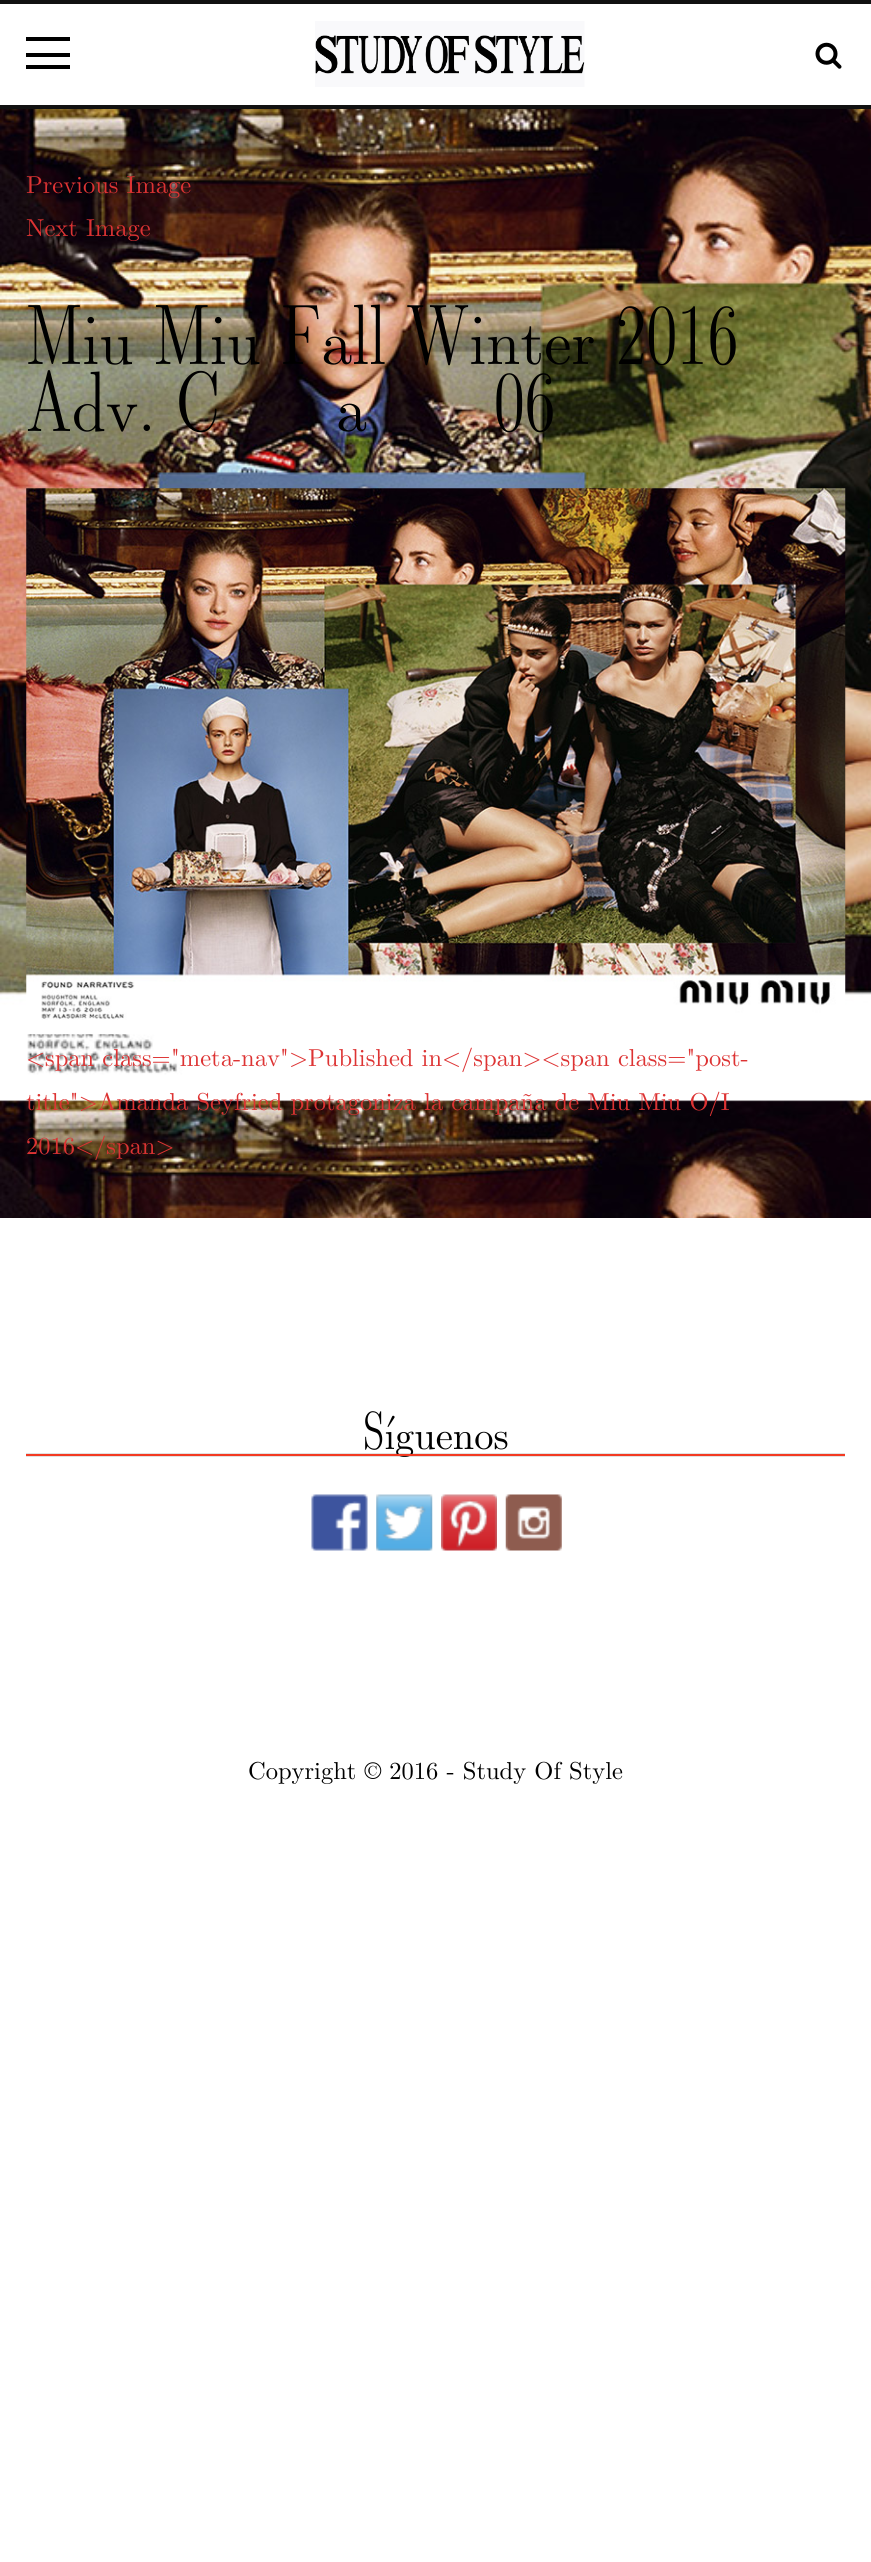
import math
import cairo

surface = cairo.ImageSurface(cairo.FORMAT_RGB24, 871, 2562)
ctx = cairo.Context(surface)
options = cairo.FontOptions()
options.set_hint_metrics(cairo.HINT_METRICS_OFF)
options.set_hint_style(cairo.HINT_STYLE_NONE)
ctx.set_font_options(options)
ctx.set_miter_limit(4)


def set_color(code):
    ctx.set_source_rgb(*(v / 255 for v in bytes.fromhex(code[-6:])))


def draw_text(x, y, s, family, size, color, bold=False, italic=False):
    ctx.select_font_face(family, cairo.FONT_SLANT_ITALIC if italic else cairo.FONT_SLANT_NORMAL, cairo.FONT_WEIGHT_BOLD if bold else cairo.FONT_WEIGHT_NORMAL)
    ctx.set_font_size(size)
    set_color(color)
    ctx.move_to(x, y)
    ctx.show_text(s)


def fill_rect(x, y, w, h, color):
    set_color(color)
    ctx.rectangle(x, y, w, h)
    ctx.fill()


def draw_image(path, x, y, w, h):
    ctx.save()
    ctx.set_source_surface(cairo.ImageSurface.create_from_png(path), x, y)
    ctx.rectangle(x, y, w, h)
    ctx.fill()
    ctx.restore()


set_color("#ffffff")
ctx.paint()
fill_rect(0, 0, 871, 4, "#111111")
fill_rect(0, 105, 871, 4, "#111111")
fill_rect(26, 53, 44, 4, "#000000")
fill_rect(26, 37, 44, 4, "#000000")
fill_rect(26, 65, 44, 4, "#000000")
draw_image("assets/img1.png", 315, 21, 270, 66)
draw_image("assets/img2.png", 815, 42, 27, 27)
draw_image("assets/img3.png", 0, 109, 871, 1109)
draw_text(26, 193, "Previous Image", "Latin Modern Roman", 24.5, "#dd3333")
draw_text(26, 236, "Next Image", "Latin Modern Roman", 24.5, "#dd3333")
draw_text(26, 364, "Miu Miu Fall Winter 2016", "Latin Modern Roman Dunhill", 61.25, "#000000")
draw_text(26, 431, "Adv. C", "Latin Modern Roman Dunhill", 61.25, "#000000")
draw_text(336, 431, "a", "Latin Modern Roman Dunhill", 61.25, "#000000")
draw_text(494, 431, "06", "Latin Modern Roman Dunhill", 61.25, "#000000")
draw_image("assets/img4.png", 26, 488, 820, 547)
draw_text(26, 1066, "<span class=\"meta-nav\">Published in</span><span class=\"post-", "Latin Modern Roman", 24.5, "#dd3333")
draw_text(26, 1110, "title\">Amanda Seyfried protagoniza la campaña de Miu Miu O/I", "Latin Modern Roman", 24.5, "#dd3333")
draw_text(26, 1154, "2016</span>", "Latin Modern Roman", 24.5, "#dd3333")
fill_rect(26, 1453, 819, 4, "#e1e1e1")
draw_text(363, 1449, "Síguenos", "Latin Modern Roman Dunhill", 38.5, "#000000")
fill_rect(26, 1454, 819, 2, "#f33a22")
draw_image("assets/img5.png", 311, 1494, 57, 57)
draw_image("assets/img6.png", 376, 1494, 57, 57)
draw_image("assets/img7.png", 441, 1494, 56, 57)
draw_image("assets/img8.png", 505, 1494, 57, 57)
draw_text(248, 1779, "Copyright © 2016 - Study Of Style", "Latin Modern Roman", 24.5, "#000000")
surface.write_to_png("output.png")
